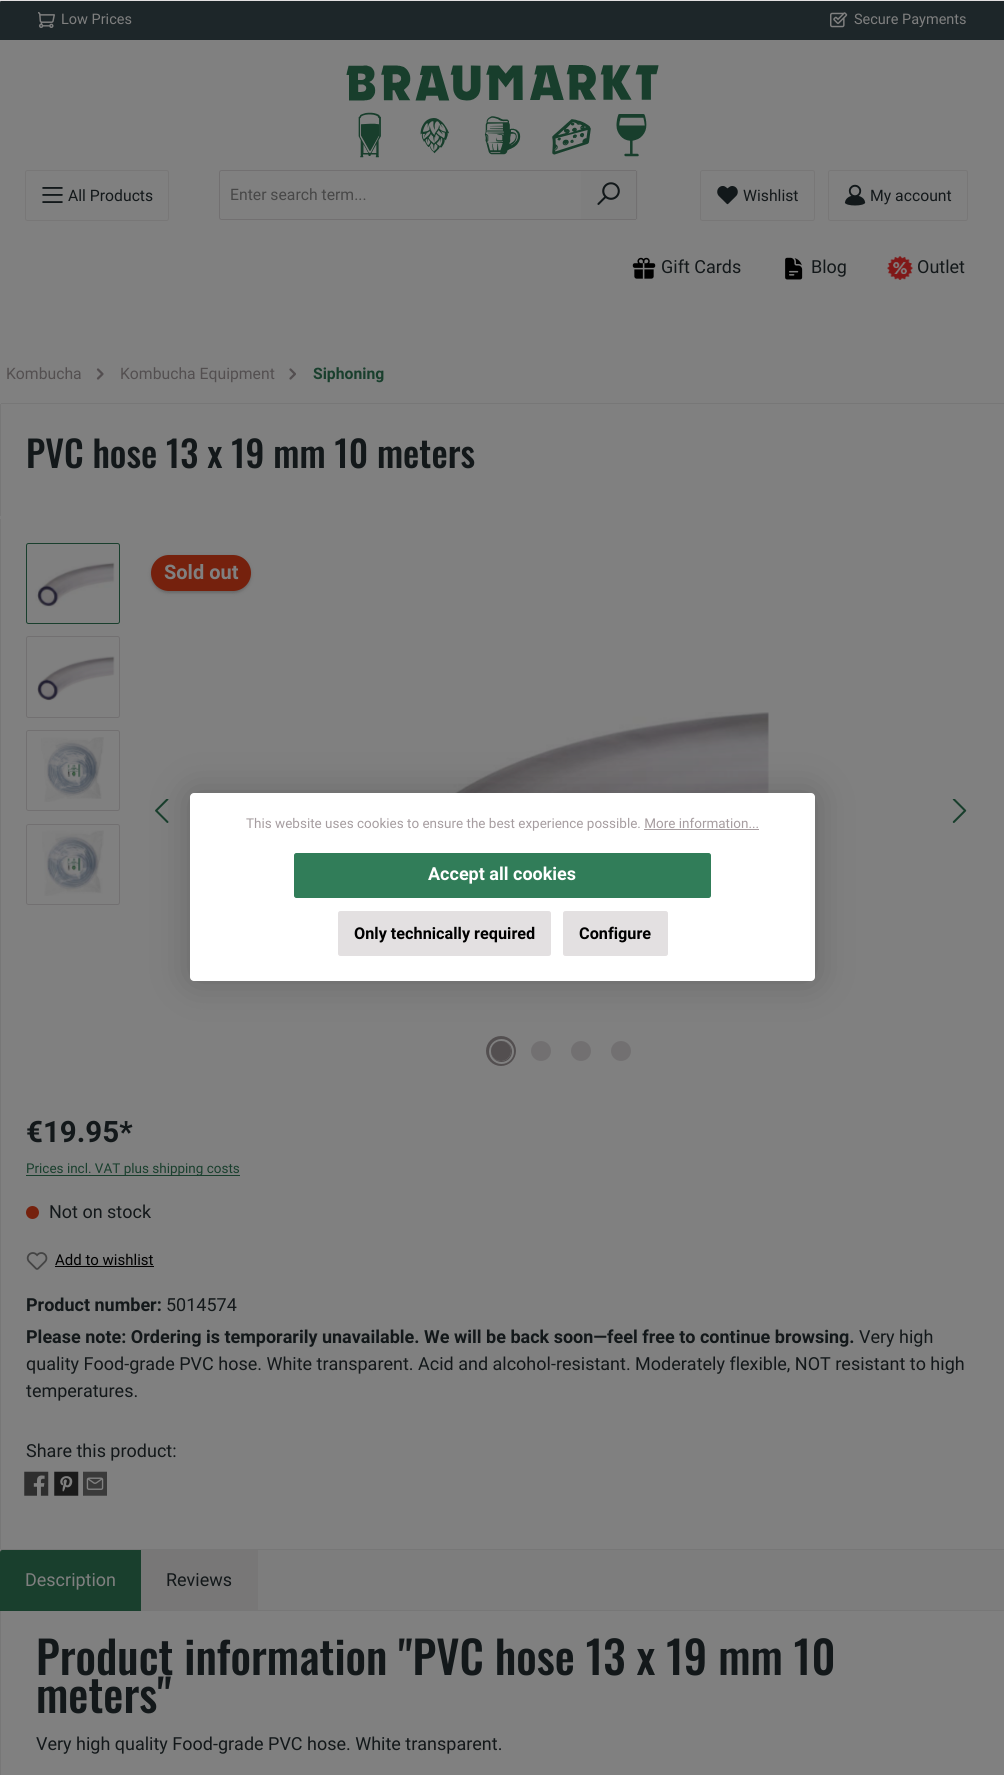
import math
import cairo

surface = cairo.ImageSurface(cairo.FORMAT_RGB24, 1004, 1775)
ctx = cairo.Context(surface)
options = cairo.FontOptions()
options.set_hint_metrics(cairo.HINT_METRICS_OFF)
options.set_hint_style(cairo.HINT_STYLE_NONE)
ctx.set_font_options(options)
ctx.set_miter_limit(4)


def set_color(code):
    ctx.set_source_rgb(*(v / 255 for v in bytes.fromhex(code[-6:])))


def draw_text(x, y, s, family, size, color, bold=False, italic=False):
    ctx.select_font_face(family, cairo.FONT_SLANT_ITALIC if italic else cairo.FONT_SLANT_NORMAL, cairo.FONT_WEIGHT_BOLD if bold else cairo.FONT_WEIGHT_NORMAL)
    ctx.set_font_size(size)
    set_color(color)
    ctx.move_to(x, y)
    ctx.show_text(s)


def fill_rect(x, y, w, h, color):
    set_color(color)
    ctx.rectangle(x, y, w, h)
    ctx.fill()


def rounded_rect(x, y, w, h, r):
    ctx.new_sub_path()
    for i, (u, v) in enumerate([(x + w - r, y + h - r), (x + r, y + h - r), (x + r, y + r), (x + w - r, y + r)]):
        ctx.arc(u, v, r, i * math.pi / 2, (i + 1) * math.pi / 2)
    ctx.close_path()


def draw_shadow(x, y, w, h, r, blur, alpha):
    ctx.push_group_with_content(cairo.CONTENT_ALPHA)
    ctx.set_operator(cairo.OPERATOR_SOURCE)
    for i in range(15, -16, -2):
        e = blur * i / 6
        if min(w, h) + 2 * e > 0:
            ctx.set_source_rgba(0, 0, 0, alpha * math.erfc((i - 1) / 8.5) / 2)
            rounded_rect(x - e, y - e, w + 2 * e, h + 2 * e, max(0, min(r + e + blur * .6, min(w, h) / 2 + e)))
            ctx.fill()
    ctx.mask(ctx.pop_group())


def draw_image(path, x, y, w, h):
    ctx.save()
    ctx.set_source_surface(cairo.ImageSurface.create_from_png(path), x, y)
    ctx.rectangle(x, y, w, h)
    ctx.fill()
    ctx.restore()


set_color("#ffffff")
ctx.paint()
set_color("#000000")
draw_shadow(0, 0, 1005, 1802, 9, 6, 0.1)
set_color("#808080")
rounded_rect(0, 0, 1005, 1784, 9)
ctx.fill()
set_color("#1d2629")
ctx.new_path()
ctx.move_to(2.5, 0)
ctx.line_to(1002.5, 0)
ctx.curve_to(1004, 0, 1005, 1, 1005, 2.5)
ctx.line_to(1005, 40)
ctx.line_to(0, 40)
ctx.line_to(0, 2.5)
ctx.curve_to(0, 1, 1, 0, 2.5, 0)
ctx.close_path()
ctx.fill()
draw_image("assets/img1.png", 38, 12, 17, 16)
draw_text(61, 24, "Low Prices", "Roboto", 14.5, "#808080")
draw_image("assets/img2.png", 830, 12, 18, 16)
draw_text(854, 24, "Secure Payments", "Roboto", 14.5, "#808080")
draw_image("assets/img3.png", 346, 65, 313, 93)
rounded_rect(25.5, 170.5, 143, 50, 2)
set_color("#787777")
ctx.set_line_width(1)
ctx.stroke()
draw_image("assets/img4.png", 42, 187, 21, 16)
draw_text(68, 201, "All Products", "Roboto", 15.75, "#13181a")
ctx.new_path()
ctx.move_to(221.5, 170.5)
ctx.line_to(582.5, 170.5)
ctx.line_to(582.5, 219.5)
ctx.line_to(221.5, 219.5)
ctx.curve_to(220.5, 219.5, 219.5, 218.5, 219.5, 217.5)
ctx.line_to(219.5, 172.5)
ctx.curve_to(219.5, 171.5, 220.5, 170.5, 221.5, 170.5)
ctx.close_path()
set_color("#727071")
ctx.stroke()
draw_text(230, 200, "Enter search term...", "Roboto", 15.75, "#474747")
set_color("#7e7e7e")
ctx.new_path()
ctx.move_to(581, 170)
ctx.line_to(635.5, 170)
ctx.curve_to(637, 170, 638, 171, 638, 172.5)
ctx.line_to(638, 217.5)
ctx.curve_to(638, 219, 637, 220, 635.5, 220)
ctx.line_to(581, 220)
ctx.close_path()
ctx.fill()
fill_rect(581, 170, 55, 1, "#727071")
fill_rect(636, 171, 1, 48, "#727071")
fill_rect(581, 219, 55, 1, "#727071")
draw_image("assets/img5.png", 597, 182, 23, 23)
rounded_rect(700.5, 170.5, 114, 50, 2)
set_color("#787777")
ctx.stroke()
draw_image("assets/img6.png", 717, 186, 21, 19)
draw_text(743, 201, "Wishlist", "Roboto", 15.75, "#13181a")
rounded_rect(828.5, 170.5, 139, 50, 2)
set_color("#787777")
ctx.stroke()
draw_image("assets/img7.png", 844, 184, 22, 22)
draw_text(870, 201, "My account", "Roboto", 15.75, "#13181a")
draw_image("assets/img8.png", 632, 257, 24, 22)
draw_text(661, 273, "Gift Cards", "Roboto", 18, "#13181a")
draw_image("assets/img9.png", 785, 257, 18, 23)
draw_text(811, 273, "Blog", "Roboto", 18, "#13181a")
draw_image("assets/img10.png", 887, 256, 26, 24)
draw_text(917, 273, "Outlet", "Roboto", 18, "#13181a")
draw_text(6, 379, "Kombucha", "Roboto", 15.75, "#534f50")
draw_image("assets/img11.png", 96, 368, 8, 12)
draw_text(120, 379, "Kombucha Equipment", "Roboto", 15.75, "#534f50")
draw_image("assets/img12.png", 289, 368, 7, 12)
draw_text(313, 379, "Siphoning", "Roboto", 15.75, "#193f2d", bold=True)
fill_rect(1, 403, 1003, 1, "#777777")
fill_rect(0, 404, 1, 112, "#777777")
draw_text(26, 468, "PVC hose 13 x 19 mm 10 meters", "Oswald Medium", 36.4, "#13181a")
fill_rect(1, 1549, 1003, 1, "#777777")
fill_rect(0, 519, 1, 1030, "#777777")
rounded_rect(26.5, 543.5, 93, 80, 2)
set_color("#193f2d")
ctx.stroke()
draw_image("assets/img13.png", 35, 562, 80, 45)
rounded_rect(26.5, 636.5, 93, 81, 2)
set_color("#727071")
ctx.stroke()
draw_image("assets/img14.png", 37, 656, 78, 45)
rounded_rect(26.5, 730.5, 93, 80, 2)
ctx.stroke()
draw_image("assets/img15.png", 41, 737, 63, 65)
rounded_rect(26.5, 824.5, 93, 80, 2)
ctx.stroke()
draw_image("assets/img16.png", 42, 830, 62, 66)
set_color("#000000")
draw_shadow(151, 556, 100, 37, 18.5, 1, 0.1)
draw_shadow(151, 556, 100, 37, 18.5, 2, 0.1)
set_color("#75210d")
rounded_rect(151, 555, 100, 36, 18)
ctx.fill()
draw_text(164, 579, "Sold out", "Roboto", 20, "#808080", bold=True)
draw_image("assets/img17.png", 381, 712, 388, 81)
draw_image("assets/img18.png", 155, 799, 14, 24)
draw_image("assets/img19.png", 952, 799, 15, 24)
ctx.arc(501, 1051, 12.5, 0, 2 * math.pi)
set_color("#534f50")
ctx.set_line_width(5)
ctx.stroke()
ctx.arc(501.5, 1051.5, 11.5, 0, 2 * math.pi)
set_color("#808080")
ctx.set_line_width(2)
ctx.stroke()
set_color("#534f50")
ctx.arc(501, 1051, 10, 0, 2 * math.pi)
ctx.fill()
set_color("#727071")
ctx.arc(541, 1051, 10, 0, 2 * math.pi)
ctx.fill()
ctx.arc(581, 1051, 10, 0, 2 * math.pi)
ctx.fill()
ctx.arc(621, 1051, 10, 0, 2 * math.pi)
ctx.fill()
draw_text(26, 1142, "€19.95*", "Roboto", 29.5, "#13181a", bold=True)
fill_rect(26, 1175, 214, 1, "#193f2d")
draw_text(26, 1173, "Prices incl. VAT plus shipping costs", "Roboto", 13.5, "#193f2d")
set_color("#75210d")
ctx.new_path()
ctx.arc(32.5, 1212.5, 6.5, 0, 2 * math.pi)
ctx.fill()
draw_text(49, 1218, "Not on stock", "Roboto", 18, "#13181a")
draw_image("assets/img20.png", 26, 1252, 22, 18)
draw_text(55, 1265, "Add to wishlist", "Roboto", 15, "#000000")
fill_rect(55, 1266, 99, 1, "#000000")
draw_text(26, 1311, "Product number:", "Roboto", 18, "#13181a", bold=True)
draw_text(166, 1311, "5014574", "Roboto", 18, "#13181a")
draw_text(26, 1343, "Please note: Ordering is temporarily unavailable. We will be back soon—feel free to continue browsing.", "Roboto", 18, "#13181a", bold=True)
draw_text(859, 1343, "Very high", "Roboto", 18, "#13181a")
draw_text(26, 1370, "quality Food-grade PVC hose. White transparent. Acid and alcohol-resistant. Moderately flexible, NOT resistant to high", "Roboto", 18, "#13181a")
draw_text(26, 1397, "temperatures.", "Roboto", 18, "#13181a")
draw_text(26, 1457, "Share this product:", "Roboto", 18, "#13181a")
draw_image("assets/img21.png", 24, 1471, 25, 25)
draw_image("assets/img22.png", 54, 1471, 25, 25)
draw_image("assets/img23.png", 83, 1471, 24, 25)
set_color("#7d7d7d")
ctx.new_path()
ctx.move_to(5, 1550)
ctx.line_to(1002.5, 1550)
ctx.curve_to(1004, 1550, 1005, 1551, 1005, 1552.5)
ctx.line_to(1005, 1610)
ctx.line_to(0, 1610)
ctx.line_to(0, 1555)
ctx.curve_to(0, 1552, 2, 1550, 5, 1550)
ctx.close_path()
ctx.fill()
set_color("#193f2d")
ctx.new_path()
ctx.move_to(2.5, 1550)
ctx.line_to(141, 1550)
ctx.line_to(141, 1608)
ctx.line_to(0, 1608)
ctx.line_to(0, 1552.5)
ctx.curve_to(0, 1551, 1, 1550, 2.5, 1550)
ctx.close_path()
ctx.fill()
ctx.rectangle(0.5, 1610.5, 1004, 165)
set_color("#777777")
ctx.set_line_width(1)
ctx.stroke()
fill_rect(0, 1608, 141, 3, "#193f2d")
draw_text(25, 1586, "Description", "Roboto", 18, "#808080")
fill_rect(141, 1550, 117, 60, "#787777")
draw_text(166, 1586, "Reviews", "Roboto", 18, "#13181a")
draw_text(36, 1675, "Product information \"PVC hose 13 x 19 mm 10", "Oswald Medium", 45, "#13181a")
draw_text(36, 1713, "meters\"", "Oswald Medium", 45, "#13181a")
draw_text(36, 1750, "Very high quality Food-grade PVC hose. White transparent.", "Roboto", 18, "#13181a")
fill_rect(0, 0, 1004, 1, "#e3e0e1")
set_color("#000000")
draw_shadow(190, 793, 625, 188, 4, 19, 0.2)
set_color("#ffffff")
rounded_rect(190, 793, 625, 188, 4)
ctx.fill()
draw_text(246, 828, "This website uses cookies to ensure the best experience possible. More information...", "Roboto", 13.5, "#a69da0")
fill_rect(644, 829, 115, 1, "#a69da0")
set_color("#317d59")
rounded_rect(294.5, 853.5, 416, 44, 2)
ctx.fill_preserve()
ctx.stroke()
draw_text(428, 880, "Accept all cookies", "Roboto", 18, "#ffffff", bold=True)
set_color("#e3e0e1")
rounded_rect(338.5, 911.5, 212, 44, 2)
ctx.fill_preserve()
ctx.stroke()
draw_text(354, 939, "Only technically required", "Roboto", 16.25, "#000000", bold=True)
set_color("#e3e0e1")
rounded_rect(563.5, 911.5, 104, 44, 2)
ctx.fill_preserve()
ctx.stroke()
draw_text(579, 939, "Configure", "Roboto", 16.25, "#000000", bold=True)
surface.write_to_png("output.png")
